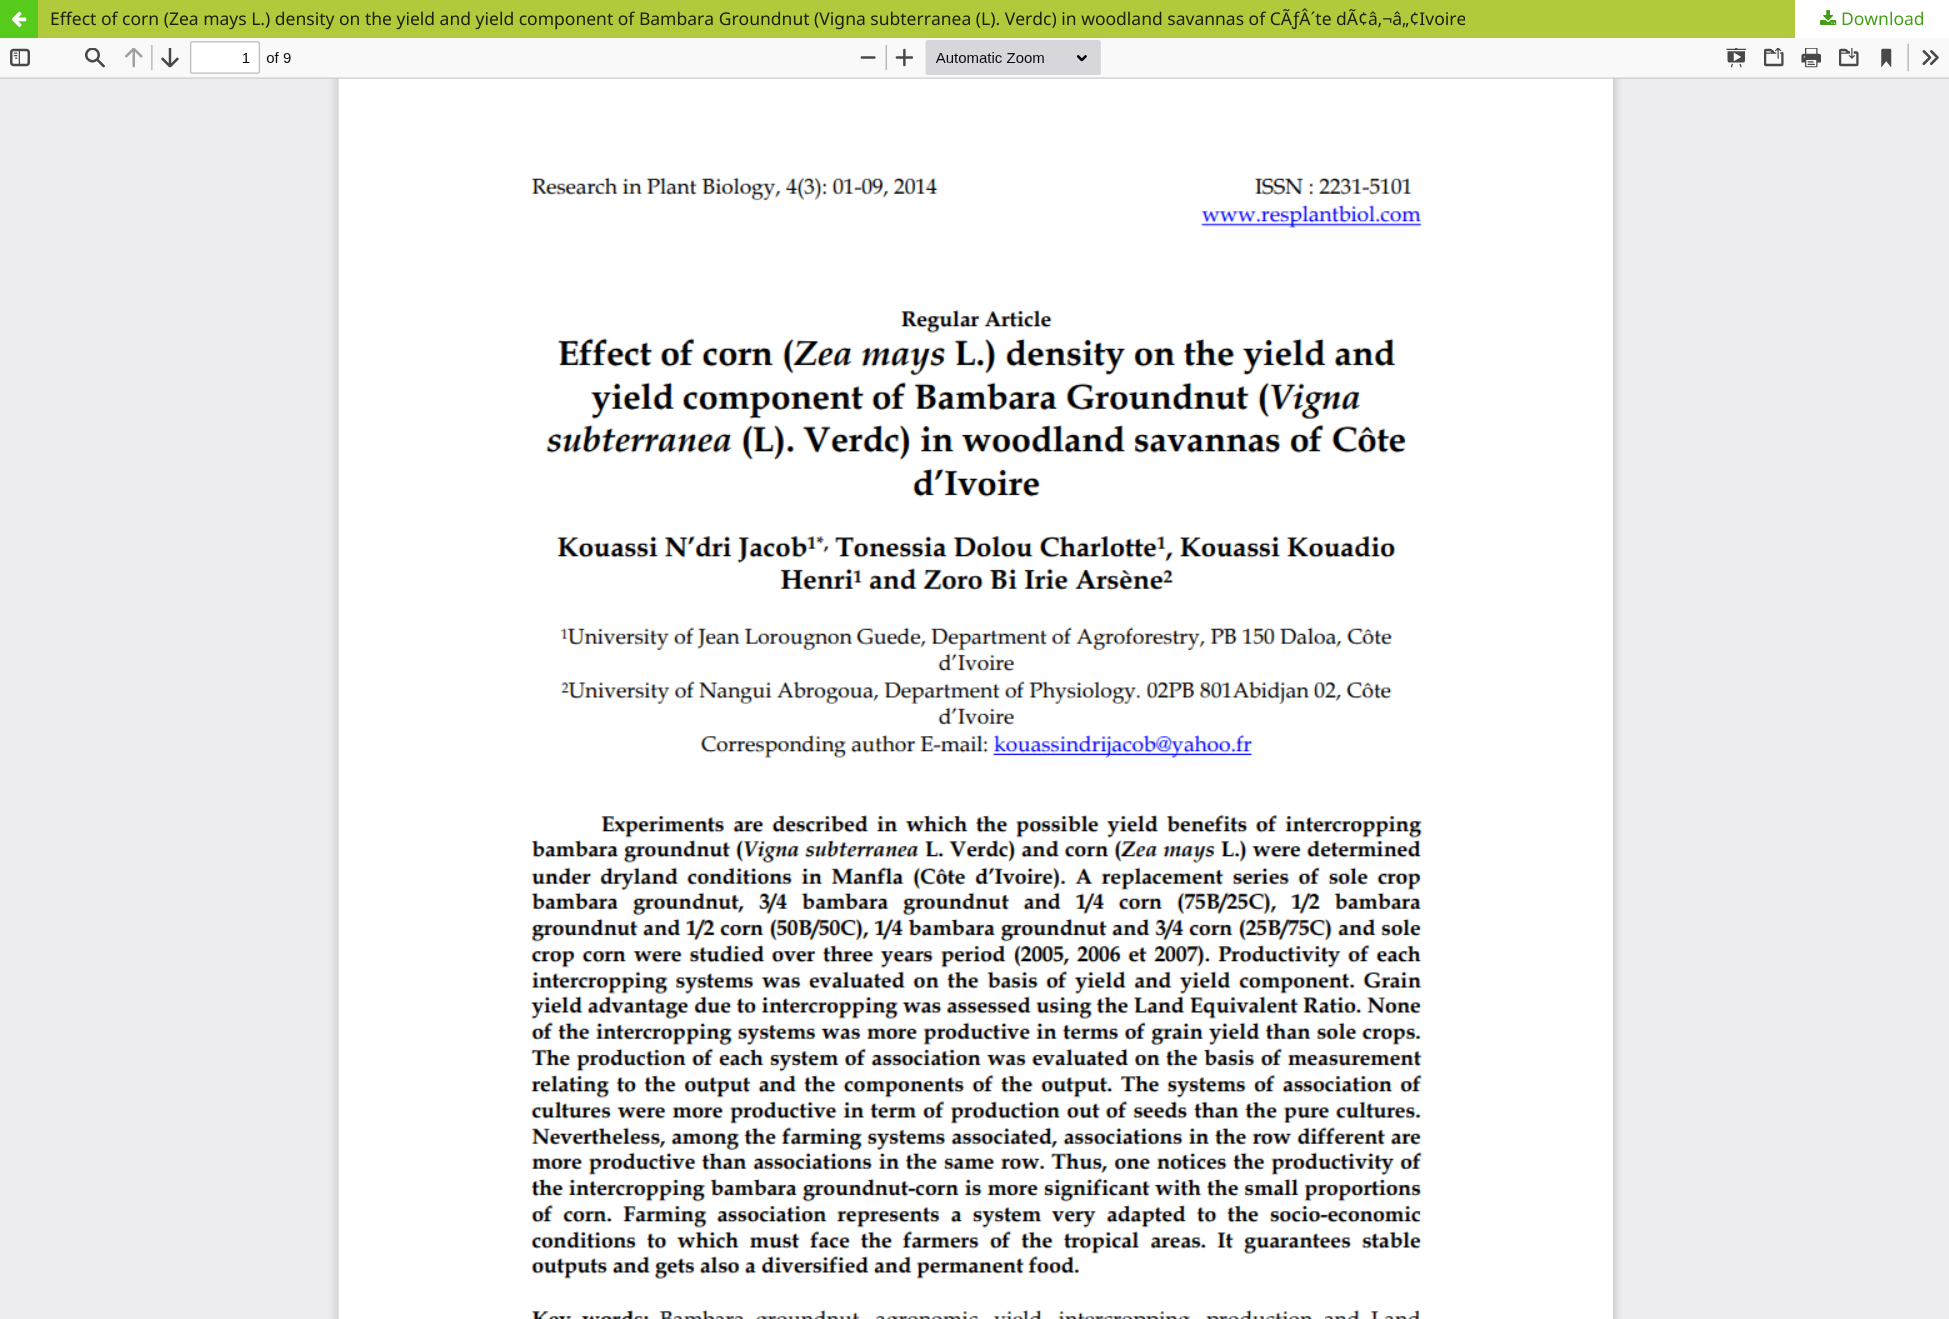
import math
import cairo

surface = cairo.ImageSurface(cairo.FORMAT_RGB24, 1949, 1319)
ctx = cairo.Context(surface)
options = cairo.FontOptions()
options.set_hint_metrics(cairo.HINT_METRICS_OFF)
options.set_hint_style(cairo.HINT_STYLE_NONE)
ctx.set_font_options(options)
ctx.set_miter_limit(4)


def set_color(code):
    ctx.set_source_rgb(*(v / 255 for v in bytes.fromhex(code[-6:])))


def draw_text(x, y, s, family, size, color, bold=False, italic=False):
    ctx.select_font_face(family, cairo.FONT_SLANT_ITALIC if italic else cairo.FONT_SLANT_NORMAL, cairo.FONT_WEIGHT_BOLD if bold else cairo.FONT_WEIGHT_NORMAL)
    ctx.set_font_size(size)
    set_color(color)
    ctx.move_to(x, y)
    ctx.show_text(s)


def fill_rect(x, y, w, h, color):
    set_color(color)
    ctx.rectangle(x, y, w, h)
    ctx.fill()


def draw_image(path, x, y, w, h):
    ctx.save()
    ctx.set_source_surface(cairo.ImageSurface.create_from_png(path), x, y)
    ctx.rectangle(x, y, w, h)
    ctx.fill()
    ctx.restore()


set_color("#ffffff")
ctx.paint()
fill_rect(38, 0, 1757, 38, "#b1ca3b")
fill_rect(0, 0, 38, 38, "#56cb1b")
draw_image("assets/img1.png", 11, 11, 16, 16)
draw_text(50, 25, "Effect of corn (Zea mays L.) density on the yield and yield component of Bambara Groundnut (Vigna subterranea (L). Verdc) in woodland savannas of CÃƒÂ´te dÃ¢â‚¬â„¢Ivoire", "Noto Sans", 17.5, "#1c2009")
draw_image("assets/img2.png", 1820, 10, 17, 15)
draw_text(1841, 25, "Download", "Noto Sans", 17.5, "#439e15")
draw_image("assets/img3.png", 0, 38, 1949, 1281)
surface.write_to_png("output.png")
